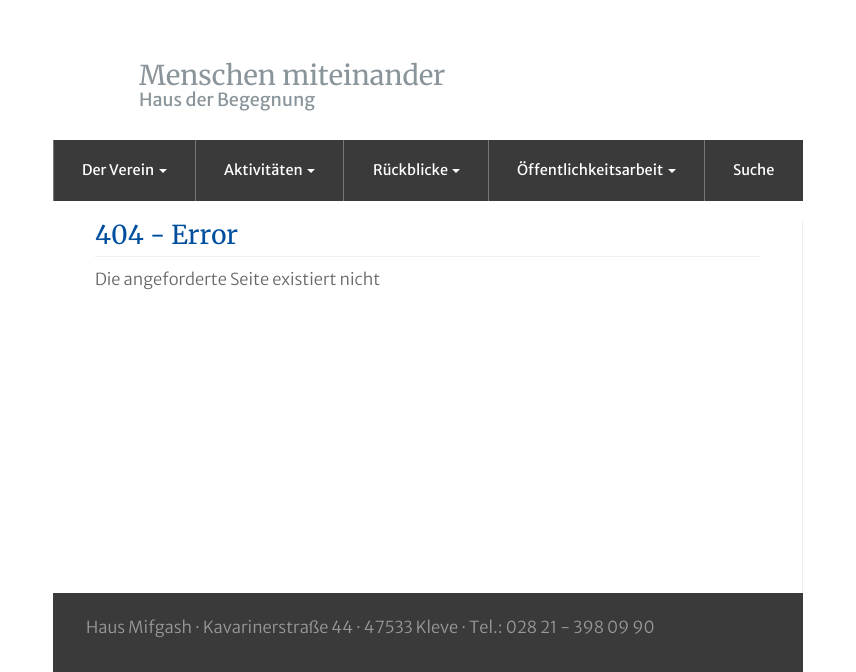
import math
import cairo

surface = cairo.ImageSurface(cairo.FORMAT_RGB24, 856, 672)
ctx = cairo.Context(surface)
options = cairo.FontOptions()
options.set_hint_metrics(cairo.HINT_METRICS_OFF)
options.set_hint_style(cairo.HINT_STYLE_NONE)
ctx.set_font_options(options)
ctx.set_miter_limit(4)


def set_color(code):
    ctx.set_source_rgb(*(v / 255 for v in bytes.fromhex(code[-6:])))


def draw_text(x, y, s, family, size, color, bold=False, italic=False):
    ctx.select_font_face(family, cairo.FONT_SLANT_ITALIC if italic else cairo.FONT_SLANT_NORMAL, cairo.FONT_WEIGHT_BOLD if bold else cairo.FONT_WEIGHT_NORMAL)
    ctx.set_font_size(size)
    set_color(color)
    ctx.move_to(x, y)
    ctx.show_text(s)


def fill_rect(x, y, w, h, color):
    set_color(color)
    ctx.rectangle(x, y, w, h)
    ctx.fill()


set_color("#ffffff")
ctx.paint()
draw_text(139, 85, "Menschen miteinander", "Merriweather", 27.25, "#8a959b")
draw_text(139, 106, "Haus der Begegnung", "Merriweather Sans", 18, "#8a959b")
fill_rect(54, 140, 141, 61, "#3b3a3a")
fill_rect(53, 140, 1, 61, "#777777")
draw_text(82, 175, "Der Verein", "Merriweather Sans", 14.5, "#ffffff")
ctx.new_path()
ctx.move_to(159, 169)
ctx.line_to(167, 169)
ctx.line_to(163, 173)
ctx.close_path()
ctx.fill()
fill_rect(196, 140, 147, 61, "#3b3a3a")
fill_rect(195, 140, 1, 61, "#777777")
draw_text(224, 175, "Aktivitäten", "Merriweather Sans", 14.5, "#ffffff")
ctx.new_path()
ctx.move_to(307, 169)
ctx.line_to(315, 169)
ctx.line_to(311, 173)
ctx.close_path()
ctx.fill()
fill_rect(344, 140, 144, 61, "#3b3a3a")
fill_rect(343, 140, 1, 61, "#777777")
draw_text(373, 175, "Rückblicke", "Merriweather Sans", 14.5, "#ffffff")
ctx.new_path()
ctx.move_to(452, 169)
ctx.line_to(460, 169)
ctx.line_to(456, 173)
ctx.close_path()
ctx.fill()
fill_rect(489, 140, 215, 61, "#3b3a3a")
fill_rect(488, 140, 1, 61, "#777777")
draw_text(517, 175, "Öffentlichkeitsarbeit", "Merriweather Sans", 14.5, "#ffffff")
ctx.new_path()
ctx.move_to(668, 169)
ctx.line_to(676, 169)
ctx.line_to(672, 173)
ctx.close_path()
ctx.fill()
fill_rect(705, 140, 98, 61, "#3b3a3a")
fill_rect(704, 140, 1, 61, "#777777")
draw_text(733, 175, "Suche", "Merriweather Sans", 14.5, "#ffffff")
fill_rect(802, 221, 1, 372, "#eeeeee")
fill_rect(95, 256, 665, 1, "#eeeeee")
draw_text(95, 244, "404 - Error", "Merriweather", 26, "#004f9f")
draw_text(95, 285, "Die angeforderte Seite existiert nicht", "Merriweather Sans Light", 16.5, "#666666")
fill_rect(53, 593, 750, 79, "#3b3a3a")
draw_text(86, 633, "Haus Mifgash · Kavarinerstraße 44 · 47533 Kleve · Tel.: 028 21 - 398 09 90", "Merriweather Sans Light", 16.5, "#999999")
surface.write_to_png("output.png")
